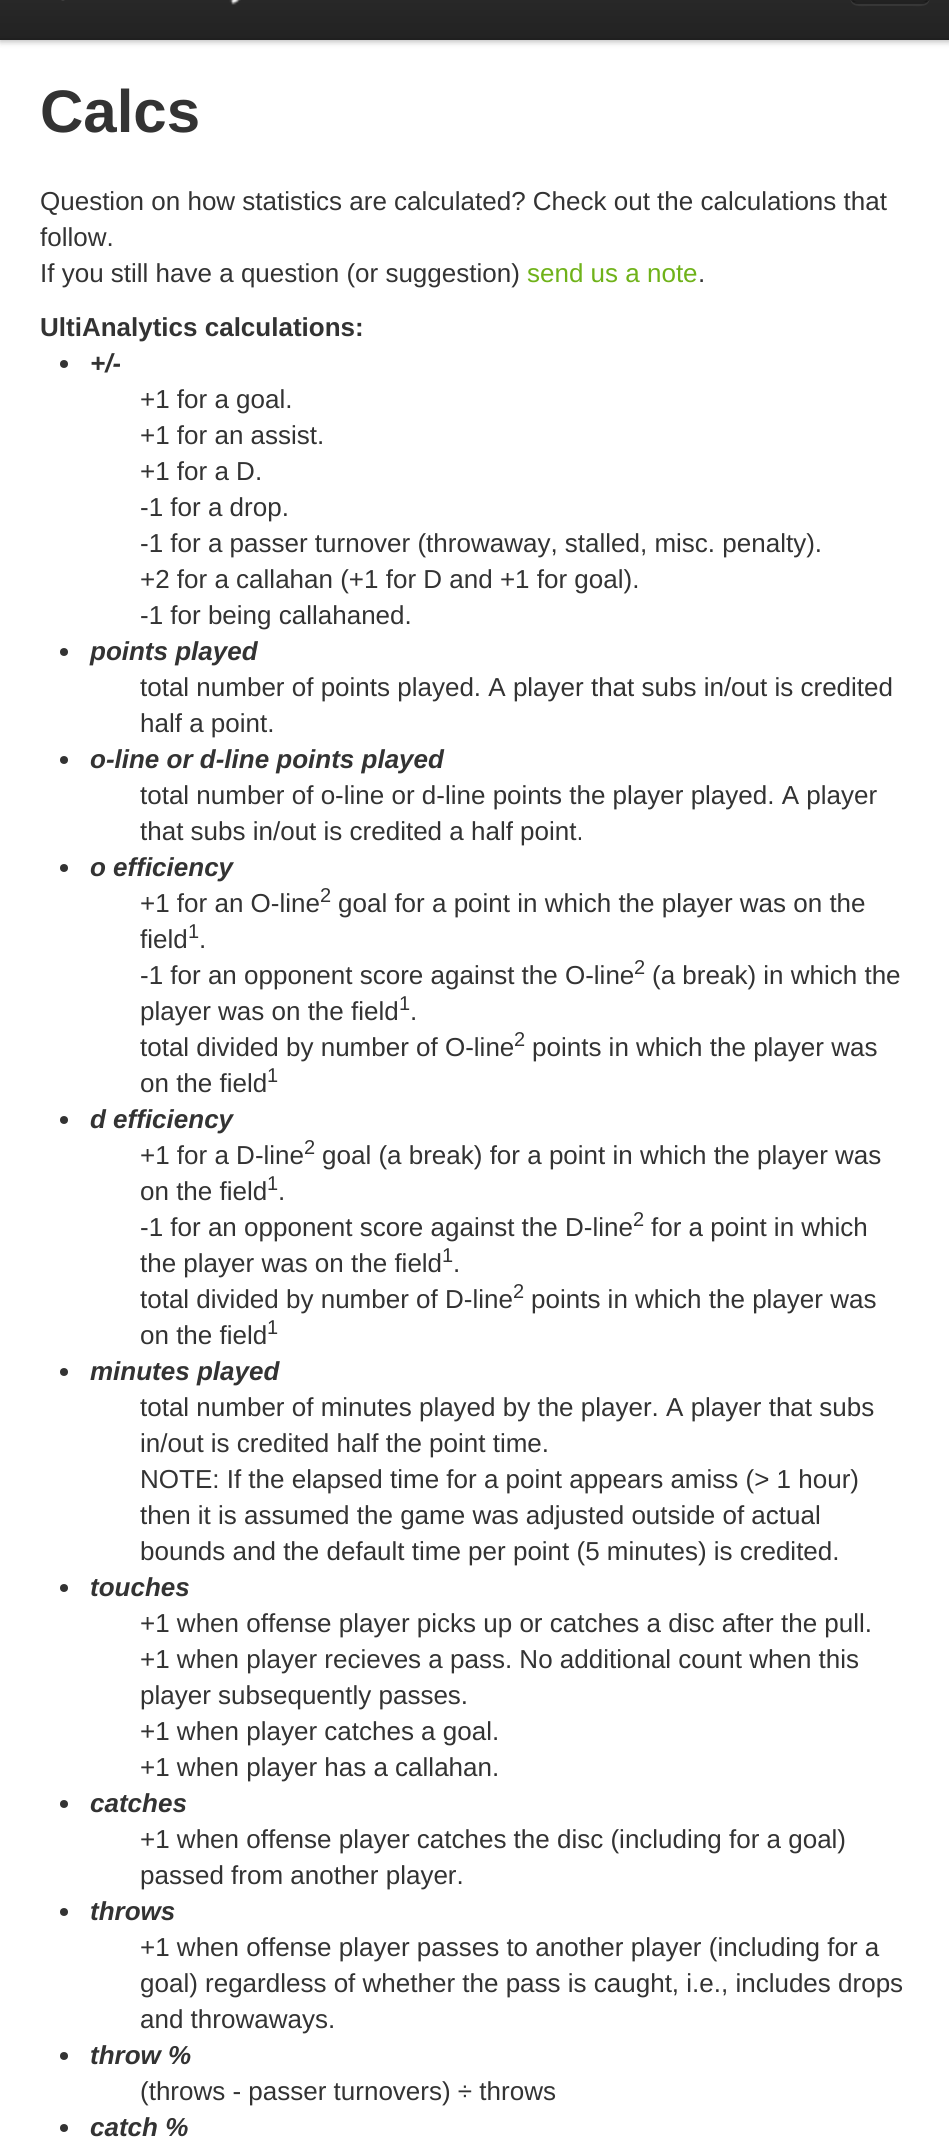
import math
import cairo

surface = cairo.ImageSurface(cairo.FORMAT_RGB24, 949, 2139)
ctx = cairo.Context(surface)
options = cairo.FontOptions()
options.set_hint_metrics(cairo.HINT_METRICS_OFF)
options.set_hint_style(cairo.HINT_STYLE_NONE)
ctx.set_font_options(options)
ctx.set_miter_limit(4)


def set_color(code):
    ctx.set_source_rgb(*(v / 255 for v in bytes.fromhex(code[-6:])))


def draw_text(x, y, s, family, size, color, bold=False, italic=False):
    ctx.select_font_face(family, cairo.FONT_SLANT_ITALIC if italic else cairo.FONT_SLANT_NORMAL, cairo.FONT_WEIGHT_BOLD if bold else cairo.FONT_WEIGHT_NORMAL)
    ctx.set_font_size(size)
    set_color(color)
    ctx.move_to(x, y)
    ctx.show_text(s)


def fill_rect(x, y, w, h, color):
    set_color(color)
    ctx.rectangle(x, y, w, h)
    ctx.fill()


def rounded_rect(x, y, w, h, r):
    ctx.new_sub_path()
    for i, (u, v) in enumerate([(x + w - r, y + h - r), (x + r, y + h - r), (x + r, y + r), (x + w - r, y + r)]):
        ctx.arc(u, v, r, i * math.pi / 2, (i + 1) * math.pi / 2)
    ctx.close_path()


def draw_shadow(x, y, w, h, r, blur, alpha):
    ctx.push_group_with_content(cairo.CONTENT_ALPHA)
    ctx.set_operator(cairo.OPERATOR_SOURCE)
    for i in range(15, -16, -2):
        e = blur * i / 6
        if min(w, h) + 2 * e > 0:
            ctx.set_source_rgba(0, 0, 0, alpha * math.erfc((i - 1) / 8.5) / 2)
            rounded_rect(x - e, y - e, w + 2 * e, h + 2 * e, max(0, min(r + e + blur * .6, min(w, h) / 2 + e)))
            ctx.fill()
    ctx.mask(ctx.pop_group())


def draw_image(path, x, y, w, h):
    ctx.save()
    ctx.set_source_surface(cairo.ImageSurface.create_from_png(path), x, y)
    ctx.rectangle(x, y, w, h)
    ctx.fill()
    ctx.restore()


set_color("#ffffff")
ctx.paint()
set_color("#000000")
draw_shadow(0, -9, 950, 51, 0, 3, 0.25)
gradient = cairo.LinearGradient(475, -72, 475, 40)
gradient.add_color_stop_rgba(0, 0.2, 0.2, 0.2, 1)
gradient.add_color_stop_rgba(1, 0.133, 0.133, 0.133, 1)
ctx.set_source(gradient)
ctx.rectangle(0, 0, 949, 38)
ctx.fill()
fill_rect(0, 38, 949, 2, "#1f1f1f")
draw_image("assets/img1.png", 61, 0, 180, 5)
set_color("#373737")
ctx.new_path()
ctx.move_to(850, -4)
ctx.curve_to(850, 8, 859, 6, 869, 6)
ctx.line_to(911, 6)
ctx.curve_to(921, 6, 930, 8, 930, -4)
ctx.curve_to(930, 0, 926, 4, 922, 4)
ctx.line_to(858, 4)
ctx.curve_to(854, 4, 850, 0, 850, -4)
ctx.close_path()
ctx.fill()
set_color("#2c2c2c")
rounded_rect(850, -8, 80, 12, 8)
ctx.fill()
ctx.save()
rounded_rect(850, -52, 80, 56, 8)
ctx.clip()
gradient = cairo.LinearGradient(890, -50, 890, 2)
gradient.add_color_stop_rgba(0, 0.2, 0.2, 0.2, 1)
gradient.add_color_stop_rgba(1, 0.133, 0.133, 0.133, 1)
ctx.set_source(gradient)
ctx.rectangle(850, 0, 80, 2)
ctx.fill()
ctx.restore()
ctx.new_path()
ctx.move_to(927, 1)
ctx.curve_to(925.5, 2.5, 924, 3, 922, 3)
ctx.line_to(858, 3)
ctx.curve_to(856, 3, 854.5, 2.5, 853, 1)
ctx.set_source_rgba(0, 0, 0, 0.25)
ctx.stroke()
ctx.new_path()
ctx.move_to(853, 1)
ctx.curve_to(851.5, -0.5, 851, -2, 851, -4)
ctx.line_to(851, -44)
ctx.curve_to(851, -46, 851.5, -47.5, 853, -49)
ctx.curve_to(854.5, -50.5, 856, -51, 858, -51)
ctx.line_to(922, -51)
ctx.curve_to(924, -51, 925.5, -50.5, 927, -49)
ctx.curve_to(928.5, -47.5, 929, -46, 929, -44)
ctx.line_to(929, -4)
ctx.curve_to(929, -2, 928.5, -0.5, 927, 1)
ctx.set_source_rgba(0, 0, 0, 0.1)
ctx.stroke()
draw_text(40, 132, "Calcs", "Liberation Sans", 60, "#333333", bold=True)
draw_text(40, 210, "Question on how statistics are calculated? Check out the calculations that", "Liberation Sans", 26, "#333333")
draw_text(40, 246, "follow.", "Liberation Sans", 26, "#333333")
draw_text(40, 282, "If you still have a question (or suggestion)", "Liberation Sans", 26, "#333333")
draw_text(527, 282, "send us a note", "Liberation Sans", 26, "#6fb219")
draw_text(698, 282, ".", "Liberation Sans", 26, "#333333")
draw_text(40, 336, "UltiAnalytics calculations:", "Liberation Sans", 26, "#333333", bold=True)
ctx.new_path()
ctx.arc(64, 364, 4, 0, 2 * math.pi)
ctx.fill()
draw_text(90, 372, "+/-", "Liberation Sans", 26, "#333333", bold=True, italic=True)
draw_text(140, 408, "+1 for a goal.", "Liberation Sans", 26, "#333333")
draw_text(140, 444, "+1 for an assist.", "Liberation Sans", 26, "#333333")
draw_text(140, 480, "+1 for a D.", "Liberation Sans", 26, "#333333")
draw_text(140, 516, "-1 for a drop.", "Liberation Sans", 26, "#333333")
draw_text(140, 552, "-1 for a passer turnover (throwaway, stalled, misc. penalty).", "Liberation Sans", 26, "#333333")
draw_text(140, 588, "+2 for a callahan (+1 for D and +1 for goal).", "Liberation Sans", 26, "#333333")
draw_text(140, 624, "-1 for being callahaned.", "Liberation Sans", 26, "#333333")
ctx.new_path()
ctx.arc(64, 652, 4, 0, 2 * math.pi)
ctx.fill()
draw_text(90, 660, "points played", "Liberation Sans", 26, "#333333", bold=True, italic=True)
draw_text(140, 696, "total number of points played. A player that subs in/out is credited", "Liberation Sans", 26, "#333333")
draw_text(140, 732, "half a point.", "Liberation Sans", 26, "#333333")
ctx.new_path()
ctx.arc(64, 760, 4, 0, 2 * math.pi)
ctx.fill()
draw_text(90, 768, "o-line or d-line points played", "Liberation Sans", 26, "#333333", bold=True, italic=True)
draw_text(140, 804, "total number of o-line or d-line points the player played. A player", "Liberation Sans", 26, "#333333")
draw_text(140, 840, "that subs in/out is credited a half point.", "Liberation Sans", 26, "#333333")
ctx.new_path()
ctx.arc(64, 868, 4, 0, 2 * math.pi)
ctx.fill()
draw_text(90, 876, "o efficiency", "Liberation Sans", 26, "#333333", bold=True, italic=True)
draw_text(140, 912, "+1 for an O-line", "Liberation Sans", 26, "#333333")
draw_text(320, 902, "2", "Liberation Sans", 20, "#333333")
draw_text(338, 912, "goal for a point in which the player was on the", "Liberation Sans", 26, "#333333")
draw_text(140, 948, "field", "Liberation Sans", 26, "#333333")
draw_text(188, 938, "1", "Liberation Sans", 20, "#333333")
draw_text(199, 948, ".", "Liberation Sans", 26, "#333333")
draw_text(140, 984, "-1 for an opponent score against the O-line", "Liberation Sans", 26, "#333333")
draw_text(634, 974, "2", "Liberation Sans", 20, "#333333")
draw_text(652, 984, "(a break) in which the", "Liberation Sans", 26, "#333333")
draw_text(140, 1020, "player was on the field", "Liberation Sans", 26, "#333333")
draw_text(399, 1010, "1", "Liberation Sans", 20, "#333333")
draw_text(410, 1020, ".", "Liberation Sans", 26, "#333333")
draw_text(140, 1056, "total divided by number of O-line", "Liberation Sans", 26, "#333333")
draw_text(514, 1046, "2", "Liberation Sans", 20, "#333333")
draw_text(532, 1056, "points in which the player was", "Liberation Sans", 26, "#333333")
draw_text(140, 1092, "on the field", "Liberation Sans", 26, "#333333")
draw_text(267, 1082, "1", "Liberation Sans", 20, "#333333")
ctx.new_path()
ctx.arc(64, 1120, 4, 0, 2 * math.pi)
ctx.fill()
draw_text(90, 1128, "d efficiency", "Liberation Sans", 26, "#333333", bold=True, italic=True)
draw_text(140, 1164, "+1 for a D-line", "Liberation Sans", 26, "#333333")
draw_text(304, 1154, "2", "Liberation Sans", 20, "#333333")
draw_text(322, 1164, "goal (a break) for a point in which the player was", "Liberation Sans", 26, "#333333")
draw_text(140, 1200, "on the field", "Liberation Sans", 26, "#333333")
draw_text(267, 1190, "1", "Liberation Sans", 20, "#333333")
draw_text(278, 1200, ".", "Liberation Sans", 26, "#333333")
draw_text(140, 1236, "-1 for an opponent score against the D-line", "Liberation Sans", 26, "#333333")
draw_text(633, 1226, "2", "Liberation Sans", 20, "#333333")
draw_text(651, 1236, "for a point in which", "Liberation Sans", 26, "#333333")
draw_text(140, 1272, "the player was on the field", "Liberation Sans", 26, "#333333")
draw_text(442, 1262, "1", "Liberation Sans", 20, "#333333")
draw_text(453, 1272, ".", "Liberation Sans", 26, "#333333")
draw_text(140, 1308, "total divided by number of D-line", "Liberation Sans", 26, "#333333")
draw_text(513, 1298, "2", "Liberation Sans", 20, "#333333")
draw_text(531, 1308, "points in which the player was", "Liberation Sans", 26, "#333333")
draw_text(140, 1344, "on the field", "Liberation Sans", 26, "#333333")
draw_text(267, 1334, "1", "Liberation Sans", 20, "#333333")
ctx.new_path()
ctx.arc(64, 1372, 4, 0, 2 * math.pi)
ctx.fill()
draw_text(90, 1380, "minutes played", "Liberation Sans", 26, "#333333", bold=True, italic=True)
draw_text(140, 1416, "total number of minutes played by the player. A player that subs", "Liberation Sans", 26, "#333333")
draw_text(140, 1452, "in/out is credited half the point time.", "Liberation Sans", 26, "#333333")
draw_text(140, 1488, "NOTE: If the elapsed time for a point appears amiss (> 1 hour)", "Liberation Sans", 26, "#333333")
draw_text(140, 1524, "then it is assumed the game was adjusted outside of actual", "Liberation Sans", 26, "#333333")
draw_text(140, 1560, "bounds and the default time per point (5 minutes) is credited.", "Liberation Sans", 26, "#333333")
ctx.new_path()
ctx.arc(64, 1588, 4, 0, 2 * math.pi)
ctx.fill()
draw_text(90, 1596, "touches", "Liberation Sans", 26, "#333333", bold=True, italic=True)
draw_text(140, 1632, "+1 when offense player picks up or catches a disc after the pull.", "Liberation Sans", 26, "#333333")
draw_text(140, 1668, "+1 when player recieves a pass. No additional count when this", "Liberation Sans", 26, "#333333")
draw_text(140, 1704, "player subsequently passes.", "Liberation Sans", 26, "#333333")
draw_text(140, 1740, "+1 when player catches a goal.", "Liberation Sans", 26, "#333333")
draw_text(140, 1776, "+1 when player has a callahan.", "Liberation Sans", 26, "#333333")
ctx.new_path()
ctx.arc(64, 1804, 4, 0, 2 * math.pi)
ctx.fill()
draw_text(90, 1812, "catches", "Liberation Sans", 26, "#333333", bold=True, italic=True)
draw_text(140, 1848, "+1 when offense player catches the disc (including for a goal)", "Liberation Sans", 26, "#333333")
draw_text(140, 1884, "passed from another player.", "Liberation Sans", 26, "#333333")
ctx.new_path()
ctx.arc(64, 1912, 4, 0, 2 * math.pi)
ctx.fill()
draw_text(90, 1920, "throws", "Liberation Sans", 26, "#333333", bold=True, italic=True)
draw_text(140, 1956, "+1 when offense player passes to another player (including for a", "Liberation Sans", 26, "#333333")
draw_text(140, 1992, "goal) regardless of whether the pass is caught, i.e., includes drops", "Liberation Sans", 26, "#333333")
draw_text(140, 2028, "and throwaways.", "Liberation Sans", 26, "#333333")
ctx.new_path()
ctx.arc(64, 2056, 4, 0, 2 * math.pi)
ctx.fill()
draw_text(90, 2064, "throw %", "Liberation Sans", 26, "#333333", bold=True, italic=True)
draw_text(140, 2100, "(throws - passer turnovers) ÷ throws", "Liberation Sans", 26, "#333333")
ctx.new_path()
ctx.arc(64, 2128, 4, 0, 2 * math.pi)
ctx.fill()
draw_text(90, 2136, "catch %", "Liberation Sans", 26, "#333333", bold=True, italic=True)
surface.write_to_png("output.png")
